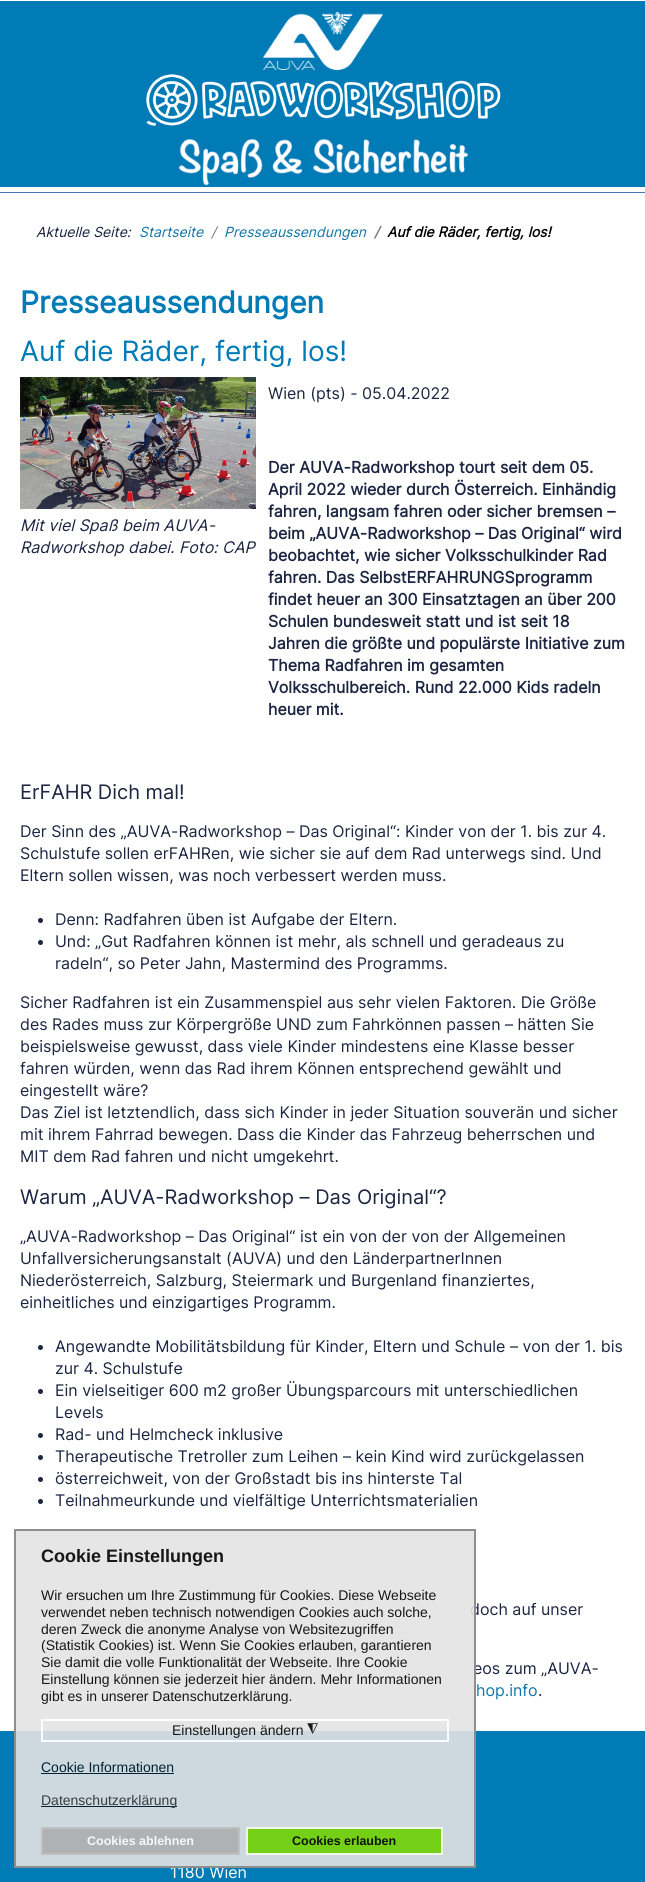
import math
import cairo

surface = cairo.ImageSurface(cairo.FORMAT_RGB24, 645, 1882)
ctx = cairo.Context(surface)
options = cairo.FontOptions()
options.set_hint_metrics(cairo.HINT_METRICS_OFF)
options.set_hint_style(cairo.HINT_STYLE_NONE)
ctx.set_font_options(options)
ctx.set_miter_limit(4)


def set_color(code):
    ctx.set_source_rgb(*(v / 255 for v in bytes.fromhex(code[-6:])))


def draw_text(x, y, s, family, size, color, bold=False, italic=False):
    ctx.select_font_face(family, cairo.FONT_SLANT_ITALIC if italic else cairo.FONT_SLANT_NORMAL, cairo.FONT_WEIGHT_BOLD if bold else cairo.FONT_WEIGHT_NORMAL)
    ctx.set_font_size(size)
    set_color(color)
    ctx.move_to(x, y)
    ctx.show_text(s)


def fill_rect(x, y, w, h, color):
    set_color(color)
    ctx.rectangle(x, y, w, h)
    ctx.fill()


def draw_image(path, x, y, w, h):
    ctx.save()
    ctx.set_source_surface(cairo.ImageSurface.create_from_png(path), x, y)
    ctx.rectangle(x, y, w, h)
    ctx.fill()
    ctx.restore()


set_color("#ffffff")
ctx.paint()
fill_rect(0, 1, 645, 186, "#007bb6")
draw_image("assets/img1.png", 263, 12, 120, 58)
draw_image("assets/img2.png", 146, 74, 355, 52)
draw_image("assets/img3.png", 178, 138, 291, 48)
fill_rect(0, 192, 645, 1, "#4b75b2")
draw_text(36, 237, "Aktuelle Seite:", "Inter", 14, "#1c2541", italic=True)
draw_text(139, 237, "Startseite", "Inter", 14, "#1176a6", italic=True)
draw_text(211, 237, "/", "Inter", 14, "#6d757e", italic=True)
draw_text(224, 237, "Presseaussendungen", "Inter", 14, "#1176a6", italic=True)
draw_text(374, 237, "/", "Inter", 14, "#6d757e", bold=True, italic=True)
draw_text(387, 237, "Auf die Räder, fertig, los!", "Inter", 14, "#000000", bold=True, italic=True)
draw_text(20, 313, "Presseaussendungen", "Inter", 30, "#007bb6", bold=True)
draw_text(20, 361, "Auf die Räder, fertig, los!", "Inter", 28, "#007bb6")
draw_image("assets/img4.png", 20, 377, 236, 132)
draw_text(20, 531, "Mit viel Spaß beim AUVA-", "Inter", 16, "#1c2541", italic=True)
draw_text(20, 553, "Radworkshop dabei. Foto: CAP", "Inter", 16, "#1c2541", italic=True)
draw_text(268, 399, "Wien (pts) - 05.04.2022", "Inter", 16, "#1c2541")
draw_text(268, 473, "Der AUVA-Radworkshop tourt seit dem 05.", "Inter", 16, "#1c2541", bold=True)
draw_text(268, 495, "April 2022 wieder durch Österreich. Einhändig", "Inter", 16, "#1c2541", bold=True)
draw_text(268, 517, "fahren, langsam fahren oder sicher bremsen –", "Inter", 16, "#1c2541", bold=True)
draw_text(268, 539, "beim „AUVA-Radworkshop – Das Original“ wird", "Inter", 16, "#1c2541", bold=True)
draw_text(268, 561, "beobachtet, wie sicher Volksschulkinder Rad", "Inter", 16, "#1c2541", bold=True)
draw_text(268, 583, "fahren. Das SelbstERFAHRUNGSprogramm", "Inter", 16, "#1c2541", bold=True)
draw_text(268, 605, "findet heuer an 300 Einsatztagen an über 200", "Inter", 16, "#1c2541", bold=True)
draw_text(268, 627, "Schulen bundesweit statt und ist seit 18", "Inter", 16, "#1c2541", bold=True)
draw_text(268, 649, "Jahren die größte und populärste Initiative zum", "Inter", 16, "#1c2541", bold=True)
draw_text(268, 671, "Thema Radfahren im gesamten", "Inter", 16, "#1c2541", bold=True)
draw_text(268, 693, "Volksschulbereich. Rund 22.000 Kids radeln", "Inter", 16, "#1c2541", bold=True)
draw_text(268, 715, "heuer mit.", "Inter", 16, "#1c2541", bold=True)
draw_text(20, 799, "ErFAHR Dich mal!", "Inter", 20, "#1c2541")
draw_text(20, 837, "Der Sinn des „AUVA-Radworkshop – Das Original“: Kinder von der 1. bis zur 4.", "Inter", 16, "#1c2541")
draw_text(20, 859, "Schulstufe sollen erFAHRen, wie sicher sie auf dem Rad unterwegs sind. Und", "Inter", 16, "#1c2541")
draw_text(20, 881, "Eltern sollen wissen, was noch verbessert werden muss.", "Inter", 16, "#1c2541")
ctx.new_path()
ctx.arc(40.5, 920.5, 2.5, 0, 2 * math.pi)
ctx.fill()
draw_text(55, 925, "Denn: Radfahren üben ist Aufgabe der Eltern.", "Inter", 16, "#1c2541")
ctx.new_path()
ctx.arc(40.5, 942.5, 2.5, 0, 2 * math.pi)
ctx.fill()
draw_text(55, 947, "Und: „Gut Radfahren können ist mehr, als schnell und geradeaus zu", "Inter", 16, "#1c2541")
draw_text(55, 969, "radeln“, so Peter Jahn, Mastermind des Programms.", "Inter", 16, "#1c2541")
draw_text(20, 1008, "Sicher Radfahren ist ein Zusammenspiel aus sehr vielen Faktoren. Die Größe", "Inter", 16, "#1c2541")
draw_text(20, 1030, "des Rades muss zur Körpergröße UND zum Fahrkönnen passen – hätten Sie", "Inter", 16, "#1c2541")
draw_text(20, 1052, "beispielsweise gewusst, dass viele Kinder mindestens eine Klasse besser", "Inter", 16, "#1c2541")
draw_text(20, 1074, "fahren würden, wenn das Rad ihrem Können entsprechend gewählt und", "Inter", 16, "#1c2541")
draw_text(20, 1096, "eingestellt wäre?", "Inter", 16, "#1c2541")
draw_text(20, 1118, "Das Ziel ist letztendlich, dass sich Kinder in jeder Situation souverän und sicher", "Inter", 16, "#1c2541")
draw_text(20, 1140, "mit ihrem Fahrrad bewegen. Dass die Kinder das Fahrzeug beherrschen und", "Inter", 16, "#1c2541")
draw_text(20, 1162, "MIT dem Rad fahren und nicht umgekehrt.", "Inter", 16, "#1c2541")
draw_text(20, 1204, "Warum „AUVA-Radworkshop – Das Original“?", "Inter", 20, "#1c2541")
draw_text(20, 1242, "„AUVA-Radworkshop – Das Original“ ist ein von der von der Allgemeinen", "Inter", 16, "#1c2541")
draw_text(20, 1264, "Unfallversicherungsanstalt (AUVA) und den LänderpartnerInnen", "Inter", 16, "#1c2541")
draw_text(20, 1286, "Niederösterreich, Salzburg, Steiermark und Burgenland finanziertes,", "Inter", 16, "#1c2541")
draw_text(20, 1308, "einheitliches und einzigartiges Programm.", "Inter", 16, "#1c2541")
ctx.new_path()
ctx.arc(40.5, 1347.5, 2.5, 0, 2 * math.pi)
ctx.fill()
draw_text(55, 1352, "Angewandte Mobilitätsbildung für Kinder, Eltern und Schule – von der 1. bis", "Inter", 16, "#1c2541")
draw_text(55, 1374, "zur 4. Schulstufe", "Inter", 16, "#1c2541")
ctx.new_path()
ctx.arc(40.5, 1391.5, 2.5, 0, 2 * math.pi)
ctx.fill()
draw_text(55, 1396, "Ein vielseitiger 600 m2 großer Übungsparcours mit unterschiedlichen", "Inter", 16, "#1c2541")
draw_text(55, 1418, "Levels", "Inter", 16, "#1c2541")
ctx.new_path()
ctx.arc(40.5, 1435.5, 2.5, 0, 2 * math.pi)
ctx.fill()
draw_text(55, 1440, "Rad- und Helmcheck inklusive", "Inter", 16, "#1c2541")
ctx.new_path()
ctx.arc(40.5, 1457.5, 2.5, 0, 2 * math.pi)
ctx.fill()
draw_text(55, 1462, "Therapeutische Tretroller zum Leihen – kein Kind wird zurückgelassen", "Inter", 16, "#1c2541")
ctx.new_path()
ctx.arc(40.5, 1479.5, 2.5, 0, 2 * math.pi)
ctx.fill()
draw_text(55, 1484, "österreichweit, von der Großstadt bis ins hinterste Tal", "Inter", 16, "#1c2541")
ctx.new_path()
ctx.arc(40.5, 1501.5, 2.5, 0, 2 * math.pi)
ctx.fill()
draw_text(55, 1506, "Teilnahmeurkunde und vielfältige Unterrichtsmaterialien", "Inter", 16, "#1c2541")
draw_text(470, 1615, "doch auf unser", "Inter", 16, "#1c2541")
draw_text(473, 1674, "eos zum „AUVA-", "Inter", 16, "#1c2541")
draw_text(476, 1696, "hop.info", "Inter", 16, "#1176a6")
draw_text(538, 1696, ".", "Inter", 16, "#1c2541")
fill_rect(0, 1731, 645, 151, "#007bb6")
draw_text(170, 1878, "1180 Wien", "Inter", 16, "#ffffff")
ctx.set_source_rgba(0.89, 0.89, 0.89, 0.9)
ctx.rectangle(14, 1529, 462, 339)
ctx.fill()
ctx.rectangle(15, 1530, 460, 337)
ctx.set_source_rgba(0.522, 0.522, 0.522, 0.9)
ctx.stroke()
draw_text(41, 1562, "Cookie Einstellungen", "Liberation Sans", 18, "#171717", bold=True)
draw_text(41, 1600, "Wir ersuchen um Ihre Zustimmung für Cookies. Diese Webseite", "Liberation Sans", 14, "#171717")
draw_text(41, 1617, "verwendet neben technisch notwendigen Cookies auch solche,", "Liberation Sans", 14, "#171717")
draw_text(41, 1634, "deren Zweck die anonyme Analyse von Websitezugriffen", "Liberation Sans", 14, "#171717")
draw_text(41, 1650, "(Statistik Cookies) ist. Wenn Sie Cookies erlauben, garantieren", "Liberation Sans", 14, "#171717")
draw_text(41, 1667, "Sie damit die volle Funktionalität der Webseite. Ihre Cookie", "Liberation Sans", 14, "#171717")
draw_text(41, 1684, "Einstellung können sie jederzeit hier ändern. Mehr Informationen", "Liberation Sans", 14, "#171717")
draw_text(41, 1701, "gibt es in unserer Datenschutzerklärung.", "Liberation Sans", 14, "#171717")
ctx.rectangle(42, 1720, 406, 21)
ctx.set_source_rgba(1, 1, 1, 0.9)
ctx.stroke()
draw_text(172, 1735, "Einstellungen ändern", "Liberation Sans", 14, "#171717")
ctx.save()
ctx.translate(318, 1725)
ctx.rotate(180 * math.pi / 180)
draw_text(0, 0, "◮", "DejaVu Sans", 14, "#171717")
ctx.restore()
draw_text(41, 1772, "Cookie Informationen", "Liberation Sans", 14, "#002233")
fill_rect(41, 1773, 133, 1, "#002233")
fill_rect(41, 1806, 136, 1, "#002233")
draw_text(41, 1805, "Datenschutzerklärung", "Liberation Sans", 14, "#393c3e")
ctx.set_source_rgba(0.678, 0.678, 0.678, 0.9)
ctx.rectangle(41, 1827, 199, 28)
ctx.fill()
ctx.rectangle(42, 1828, 197, 26)
ctx.set_source_rgba(0.761, 0.761, 0.761, 0.9)
ctx.stroke()
draw_text(87, 1845, "Cookies ablehnen", "Liberation Sans", 12.5, "#f7f7f7", bold=True)
ctx.set_source_rgba(0.42, 0.812, 0, 0.9)
ctx.rectangle(247, 1828, 195, 26)
ctx.fill_preserve()
set_color("#f1fae8")
ctx.stroke()
draw_text(292, 1845, "Cookies erlauben", "Liberation Sans", 12.5, "#0c1502", bold=True)
surface.write_to_png("output.png")
